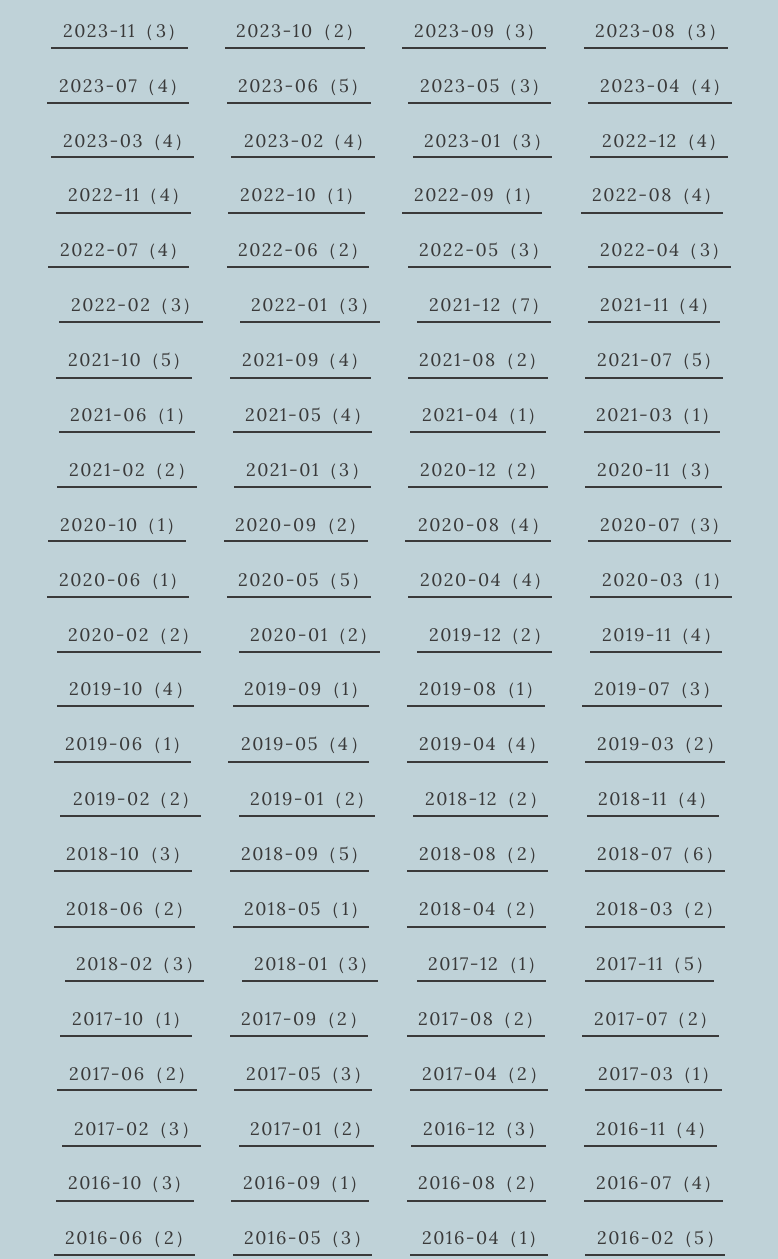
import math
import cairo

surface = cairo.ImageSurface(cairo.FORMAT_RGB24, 778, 1259)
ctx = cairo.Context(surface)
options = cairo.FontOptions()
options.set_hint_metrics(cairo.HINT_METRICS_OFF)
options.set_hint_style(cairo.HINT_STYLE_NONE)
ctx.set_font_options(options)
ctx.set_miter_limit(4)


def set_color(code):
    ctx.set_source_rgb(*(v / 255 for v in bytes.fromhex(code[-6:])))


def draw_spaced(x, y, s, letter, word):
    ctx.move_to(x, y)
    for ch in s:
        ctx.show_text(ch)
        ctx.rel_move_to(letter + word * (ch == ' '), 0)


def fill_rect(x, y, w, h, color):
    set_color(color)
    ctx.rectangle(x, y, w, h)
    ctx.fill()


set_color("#bfd2d8")
ctx.paint()
fill_rect(51, 47, 137, 2, "#3a3a3a")
ctx.select_font_face("Lora")
ctx.set_font_size(18)
draw_spaced(63, 37, "2023-11", 1.5, 0)
ctx.select_font_face("WenQuanYi Zen Hei Medium")
draw_spaced(136, 37, "（", 1.5, 0)
ctx.select_font_face("Lora")
draw_spaced(156, 37, "3", 1.5, 0)
ctx.select_font_face("WenQuanYi Zen Hei Medium")
draw_spaced(167, 37, "）", 1.5, 0)
fill_rect(225, 47, 140, 2, "#3a3a3a")
ctx.select_font_face("Lora")
draw_spaced(236, 37, "2023-10", 1.5, 0)
ctx.select_font_face("WenQuanYi Zen Hei Medium")
draw_spaced(314, 37, "（", 1.5, 0)
ctx.select_font_face("Lora")
draw_spaced(334, 37, "2", 1.5, 0)
ctx.select_font_face("WenQuanYi Zen Hei Medium")
draw_spaced(345, 37, "）", 1.5, 0)
fill_rect(402, 47, 144, 2, "#3a3a3a")
ctx.select_font_face("Lora")
draw_spaced(414, 37, "2023-09", 1.5, 0)
ctx.select_font_face("WenQuanYi Zen Hei Medium")
draw_spaced(495, 37, "（", 1.5, 0)
ctx.select_font_face("Lora")
draw_spaced(515, 37, "3", 1.5, 0)
ctx.select_font_face("WenQuanYi Zen Hei Medium")
draw_spaced(526, 37, "）", 1.5, 0)
fill_rect(584, 47, 144, 2, "#3a3a3a")
ctx.select_font_face("Lora")
draw_spaced(595, 37, "2023-08", 1.5, 0)
ctx.select_font_face("WenQuanYi Zen Hei Medium")
draw_spaced(677, 37, "（", 1.5, 0)
ctx.select_font_face("Lora")
draw_spaced(696, 37, "3", 1.5, 0)
ctx.select_font_face("WenQuanYi Zen Hei Medium")
draw_spaced(708, 37, "）", 1.5, 0)
fill_rect(47, 102, 142, 2, "#3a3a3a")
ctx.select_font_face("Lora")
draw_spaced(59, 92, "2023-07", 1.5, 0)
ctx.select_font_face("WenQuanYi Zen Hei Medium")
draw_spaced(138, 92, "（", 1.5, 0)
ctx.select_font_face("Lora")
draw_spaced(158, 92, "4", 1.5, 0)
ctx.select_font_face("WenQuanYi Zen Hei Medium")
draw_spaced(169, 92, "）", 1.5, 0)
fill_rect(227, 102, 144, 2, "#3a3a3a")
ctx.select_font_face("Lora")
draw_spaced(238, 92, "2023-06", 1.5, 0)
ctx.select_font_face("WenQuanYi Zen Hei Medium")
draw_spaced(320, 92, "（", 1.5, 0)
ctx.select_font_face("Lora")
draw_spaced(339, 92, "5", 1.5, 0)
ctx.select_font_face("WenQuanYi Zen Hei Medium")
draw_spaced(350, 92, "）", 1.5, 0)
fill_rect(408, 102, 143, 2, "#3a3a3a")
ctx.select_font_face("Lora")
draw_spaced(420, 92, "2023-05", 1.5, 0)
ctx.select_font_face("WenQuanYi Zen Hei Medium")
draw_spaced(500, 92, "（", 1.5, 0)
ctx.select_font_face("Lora")
draw_spaced(520, 92, "3", 1.5, 0)
ctx.select_font_face("WenQuanYi Zen Hei Medium")
draw_spaced(531, 92, "）", 1.5, 0)
fill_rect(588, 102, 144, 2, "#3a3a3a")
ctx.select_font_face("Lora")
draw_spaced(600, 92, "2023-04", 1.5, 0)
ctx.select_font_face("WenQuanYi Zen Hei Medium")
draw_spaced(681, 92, "（", 1.5, 0)
ctx.select_font_face("Lora")
draw_spaced(701, 92, "4", 1.5, 0)
ctx.select_font_face("WenQuanYi Zen Hei Medium")
draw_spaced(712, 92, "）", 1.5, 0)
fill_rect(51, 156, 143, 2, "#3a3a3a")
ctx.select_font_face("Lora")
draw_spaced(63, 147, "2023-03", 1.5, 0)
ctx.select_font_face("WenQuanYi Zen Hei Medium")
draw_spaced(144, 147, "（", 1.5, 0)
ctx.select_font_face("Lora")
draw_spaced(163, 147, "4", 1.5, 0)
ctx.select_font_face("WenQuanYi Zen Hei Medium")
draw_spaced(174, 147, "）", 1.5, 0)
fill_rect(231, 156, 144, 2, "#3a3a3a")
ctx.select_font_face("Lora")
draw_spaced(244, 147, "2023-02", 1.5, 0)
ctx.select_font_face("WenQuanYi Zen Hei Medium")
draw_spaced(324, 147, "（", 1.5, 0)
ctx.select_font_face("Lora")
draw_spaced(344, 147, "4", 1.5, 0)
ctx.select_font_face("WenQuanYi Zen Hei Medium")
draw_spaced(355, 147, "）", 1.5, 0)
fill_rect(413, 156, 139, 2, "#3a3a3a")
ctx.select_font_face("Lora")
draw_spaced(424, 147, "2023-01", 1.5, 0)
ctx.select_font_face("WenQuanYi Zen Hei Medium")
draw_spaced(502, 147, "（", 1.5, 0)
ctx.select_font_face("Lora")
draw_spaced(521, 147, "3", 1.5, 0)
ctx.select_font_face("WenQuanYi Zen Hei Medium")
draw_spaced(533, 147, "）", 1.5, 0)
fill_rect(590, 156, 138, 2, "#3a3a3a")
ctx.select_font_face("Lora")
draw_spaced(602, 147, "2022-12", 1.5, 0)
ctx.select_font_face("WenQuanYi Zen Hei Medium")
draw_spaced(678, 147, "（", 1.5, 0)
ctx.select_font_face("Lora")
draw_spaced(697, 147, "4", 1.5, 0)
ctx.select_font_face("WenQuanYi Zen Hei Medium")
draw_spaced(708, 147, "）", 1.5, 0)
fill_rect(56, 212, 135, 2, "#3a3a3a")
ctx.select_font_face("Lora")
draw_spaced(68, 201, "2022-11", 1.5, 0)
ctx.select_font_face("WenQuanYi Zen Hei Medium")
draw_spaced(140, 201, "（", 1.5, 0)
ctx.select_font_face("Lora")
draw_spaced(160, 201, "4", 1.5, 0)
ctx.select_font_face("WenQuanYi Zen Hei Medium")
draw_spaced(171, 201, "）", 1.5, 0)
fill_rect(228, 212, 137, 2, "#3a3a3a")
ctx.select_font_face("Lora")
draw_spaced(240, 201, "2022-10", 1.5, 0)
ctx.select_font_face("WenQuanYi Zen Hei Medium")
draw_spaced(317, 201, "（", 1.5, 0)
ctx.select_font_face("Lora")
draw_spaced(337, 201, "1", 1.5, 0)
ctx.select_font_face("WenQuanYi Zen Hei Medium")
draw_spaced(345, 201, "）", 1.5, 0)
fill_rect(402, 212, 140, 2, "#3a3a3a")
ctx.select_font_face("Lora")
draw_spaced(414, 201, "2022-09", 1.5, 0)
ctx.select_font_face("WenQuanYi Zen Hei Medium")
draw_spaced(495, 201, "（", 1.5, 0)
ctx.select_font_face("Lora")
draw_spaced(515, 201, "1", 1.5, 0)
ctx.select_font_face("WenQuanYi Zen Hei Medium")
draw_spaced(523, 201, "）", 1.5, 0)
fill_rect(581, 212, 142, 2, "#3a3a3a")
ctx.select_font_face("Lora")
draw_spaced(592, 201, "2022-08", 1.5, 0)
ctx.select_font_face("WenQuanYi Zen Hei Medium")
draw_spaced(673, 201, "（", 1.5, 0)
ctx.select_font_face("Lora")
draw_spaced(692, 201, "4", 1.5, 0)
ctx.select_font_face("WenQuanYi Zen Hei Medium")
draw_spaced(703, 201, "）", 1.5, 0)
fill_rect(48, 266, 141, 2, "#3a3a3a")
ctx.select_font_face("Lora")
draw_spaced(60, 256, "2022-07", 1.5, 0)
ctx.select_font_face("WenQuanYi Zen Hei Medium")
draw_spaced(139, 256, "（", 1.5, 0)
ctx.select_font_face("Lora")
draw_spaced(158, 256, "4", 1.5, 0)
ctx.select_font_face("WenQuanYi Zen Hei Medium")
draw_spaced(169, 256, "）", 1.5, 0)
fill_rect(227, 266, 142, 2, "#3a3a3a")
ctx.select_font_face("Lora")
draw_spaced(238, 256, "2022-06", 1.5, 0)
ctx.select_font_face("WenQuanYi Zen Hei Medium")
draw_spaced(319, 256, "（", 1.5, 0)
ctx.select_font_face("Lora")
draw_spaced(339, 256, "2", 1.5, 0)
ctx.select_font_face("WenQuanYi Zen Hei Medium")
draw_spaced(350, 256, "）", 1.5, 0)
fill_rect(408, 266, 143, 2, "#3a3a3a")
ctx.select_font_face("Lora")
draw_spaced(419, 256, "2022-05", 1.5, 0)
ctx.select_font_face("WenQuanYi Zen Hei Medium")
draw_spaced(500, 256, "（", 1.5, 0)
ctx.select_font_face("Lora")
draw_spaced(519, 256, "3", 1.5, 0)
ctx.select_font_face("WenQuanYi Zen Hei Medium")
draw_spaced(531, 256, "）", 1.5, 0)
fill_rect(588, 266, 143, 2, "#3a3a3a")
ctx.select_font_face("Lora")
draw_spaced(600, 256, "2022-04", 1.5, 0)
ctx.select_font_face("WenQuanYi Zen Hei Medium")
draw_spaced(680, 256, "（", 1.5, 0)
ctx.select_font_face("Lora")
draw_spaced(700, 256, "3", 1.5, 0)
ctx.select_font_face("WenQuanYi Zen Hei Medium")
draw_spaced(711, 256, "）", 1.5, 0)
fill_rect(59, 321, 144, 2, "#3a3a3a")
ctx.select_font_face("Lora")
draw_spaced(71, 311, "2022-02", 1.5, 0)
ctx.select_font_face("WenQuanYi Zen Hei Medium")
draw_spaced(151, 311, "（", 1.5, 0)
ctx.select_font_face("Lora")
draw_spaced(171, 311, "3", 1.5, 0)
ctx.select_font_face("WenQuanYi Zen Hei Medium")
draw_spaced(182, 311, "）", 1.5, 0)
fill_rect(240, 321, 140, 2, "#3a3a3a")
ctx.select_font_face("Lora")
draw_spaced(251, 311, "2022-01", 1.5, 0)
ctx.select_font_face("WenQuanYi Zen Hei Medium")
draw_spaced(329, 311, "（", 1.5, 0)
ctx.select_font_face("Lora")
draw_spaced(348, 311, "3", 1.5, 0)
ctx.select_font_face("WenQuanYi Zen Hei Medium")
draw_spaced(360, 311, "）", 1.5, 0)
fill_rect(417, 321, 134, 2, "#3a3a3a")
ctx.select_font_face("Lora")
draw_spaced(429, 311, "2021-12", 1.5, 0)
ctx.select_font_face("WenQuanYi Zen Hei Medium")
draw_spaced(501, 311, "（", 1.5, 0)
ctx.select_font_face("Lora")
draw_spaced(521, 311, "7", 1.5, 0)
ctx.select_font_face("WenQuanYi Zen Hei Medium")
draw_spaced(531, 311, "）", 1.5, 0)
fill_rect(588, 321, 132, 2, "#3a3a3a")
ctx.select_font_face("Lora")
draw_spaced(600, 311, "2021-11", 1.5, 0)
ctx.select_font_face("WenQuanYi Zen Hei Medium")
draw_spaced(669, 311, "（", 1.5, 0)
ctx.select_font_face("Lora")
draw_spaced(689, 311, "4", 1.5, 0)
ctx.select_font_face("WenQuanYi Zen Hei Medium")
draw_spaced(700, 311, "）", 1.5, 0)
fill_rect(56, 377, 136, 2, "#3a3a3a")
ctx.select_font_face("Lora")
draw_spaced(68, 366, "2021-10", 1.5, 0)
ctx.select_font_face("WenQuanYi Zen Hei Medium")
draw_spaced(142, 366, "（", 1.5, 0)
ctx.select_font_face("Lora")
draw_spaced(161, 366, "5", 1.5, 0)
ctx.select_font_face("WenQuanYi Zen Hei Medium")
draw_spaced(172, 366, "）", 1.5, 0)
fill_rect(230, 377, 141, 2, "#3a3a3a")
ctx.select_font_face("Lora")
draw_spaced(242, 366, "2021-09", 1.5, 0)
ctx.select_font_face("WenQuanYi Zen Hei Medium")
draw_spaced(319, 366, "（", 1.5, 0)
ctx.select_font_face("Lora")
draw_spaced(339, 366, "4", 1.5, 0)
ctx.select_font_face("WenQuanYi Zen Hei Medium")
draw_spaced(350, 366, "）", 1.5, 0)
fill_rect(408, 377, 140, 2, "#3a3a3a")
ctx.select_font_face("Lora")
draw_spaced(419, 366, "2021-08", 1.5, 0)
ctx.select_font_face("WenQuanYi Zen Hei Medium")
draw_spaced(497, 366, "（", 1.5, 0)
ctx.select_font_face("Lora")
draw_spaced(517, 366, "2", 1.5, 0)
ctx.select_font_face("WenQuanYi Zen Hei Medium")
draw_spaced(528, 366, "）", 1.5, 0)
fill_rect(585, 377, 138, 2, "#3a3a3a")
ctx.select_font_face("Lora")
draw_spaced(597, 366, "2021-07", 1.5, 0)
ctx.select_font_face("WenQuanYi Zen Hei Medium")
draw_spaced(673, 366, "（", 1.5, 0)
ctx.select_font_face("Lora")
draw_spaced(692, 366, "5", 1.5, 0)
ctx.select_font_face("WenQuanYi Zen Hei Medium")
draw_spaced(703, 366, "）", 1.5, 0)
fill_rect(59, 431, 136, 2, "#3a3a3a")
ctx.select_font_face("Lora")
draw_spaced(70, 421, "2021-06", 1.5, 0)
ctx.select_font_face("WenQuanYi Zen Hei Medium")
draw_spaced(148, 421, "（", 1.5, 0)
ctx.select_font_face("Lora")
draw_spaced(167, 421, "1", 1.5, 0)
ctx.select_font_face("WenQuanYi Zen Hei Medium")
draw_spaced(176, 421, "）", 1.5, 0)
fill_rect(233, 431, 139, 2, "#3a3a3a")
ctx.select_font_face("Lora")
draw_spaced(245, 421, "2021-05", 1.5, 0)
ctx.select_font_face("WenQuanYi Zen Hei Medium")
draw_spaced(322, 421, "（", 1.5, 0)
ctx.select_font_face("Lora")
draw_spaced(341, 421, "4", 1.5, 0)
ctx.select_font_face("WenQuanYi Zen Hei Medium")
draw_spaced(353, 421, "）", 1.5, 0)
fill_rect(410, 431, 136, 2, "#3a3a3a")
ctx.select_font_face("Lora")
draw_spaced(422, 421, "2021-04", 1.5, 0)
ctx.select_font_face("WenQuanYi Zen Hei Medium")
draw_spaced(499, 421, "（", 1.5, 0)
ctx.select_font_face("Lora")
draw_spaced(519, 421, "1", 1.5, 0)
ctx.select_font_face("WenQuanYi Zen Hei Medium")
draw_spaced(527, 421, "）", 1.5, 0)
fill_rect(584, 431, 136, 2, "#3a3a3a")
ctx.select_font_face("Lora")
draw_spaced(596, 421, "2021-03", 1.5, 0)
ctx.select_font_face("WenQuanYi Zen Hei Medium")
draw_spaced(673, 421, "（", 1.5, 0)
ctx.select_font_face("Lora")
draw_spaced(693, 421, "1", 1.5, 0)
ctx.select_font_face("WenQuanYi Zen Hei Medium")
draw_spaced(701, 421, "）", 1.5, 0)
fill_rect(57, 486, 140, 2, "#3a3a3a")
ctx.select_font_face("Lora")
draw_spaced(69, 476, "2021-02", 1.5, 0)
ctx.select_font_face("WenQuanYi Zen Hei Medium")
draw_spaced(146, 476, "（", 1.5, 0)
ctx.select_font_face("Lora")
draw_spaced(165, 476, "2", 1.5, 0)
ctx.select_font_face("WenQuanYi Zen Hei Medium")
draw_spaced(177, 476, "）", 1.5, 0)
fill_rect(234, 486, 137, 2, "#3a3a3a")
ctx.select_font_face("Lora")
draw_spaced(246, 476, "2021-01", 1.5, 0)
ctx.select_font_face("WenQuanYi Zen Hei Medium")
draw_spaced(320, 476, "（", 1.5, 0)
ctx.select_font_face("Lora")
draw_spaced(339, 476, "3", 1.5, 0)
ctx.select_font_face("WenQuanYi Zen Hei Medium")
draw_spaced(351, 476, "）", 1.5, 0)
fill_rect(408, 486, 140, 2, "#3a3a3a")
ctx.select_font_face("Lora")
draw_spaced(420, 476, "2020-12", 1.5, 0)
ctx.select_font_face("WenQuanYi Zen Hei Medium")
draw_spaced(497, 476, "（", 1.5, 0)
ctx.select_font_face("Lora")
draw_spaced(517, 476, "2", 1.5, 0)
ctx.select_font_face("WenQuanYi Zen Hei Medium")
draw_spaced(528, 476, "）", 1.5, 0)
fill_rect(585, 486, 137, 2, "#3a3a3a")
ctx.select_font_face("Lora")
draw_spaced(597, 476, "2020-11", 1.5, 0)
ctx.select_font_face("WenQuanYi Zen Hei Medium")
draw_spaced(671, 476, "（", 1.5, 0)
ctx.select_font_face("Lora")
draw_spaced(691, 476, "3", 1.5, 0)
ctx.select_font_face("WenQuanYi Zen Hei Medium")
draw_spaced(702, 476, "）", 1.5, 0)
fill_rect(48, 540, 138, 2, "#3a3a3a")
ctx.select_font_face("Lora")
draw_spaced(60, 531, "2020-10", 1.5, 0)
ctx.select_font_face("WenQuanYi Zen Hei Medium")
draw_spaced(138, 531, "（", 1.5, 0)
ctx.select_font_face("Lora")
draw_spaced(158, 531, "1", 1.5, 0)
ctx.select_font_face("WenQuanYi Zen Hei Medium")
draw_spaced(166, 531, "）", 1.5, 0)
fill_rect(224, 540, 144, 2, "#3a3a3a")
ctx.select_font_face("Lora")
draw_spaced(235, 531, "2020-09", 1.5, 0)
ctx.select_font_face("WenQuanYi Zen Hei Medium")
draw_spaced(318, 531, "（", 1.5, 0)
ctx.select_font_face("Lora")
draw_spaced(337, 531, "2", 1.5, 0)
ctx.select_font_face("WenQuanYi Zen Hei Medium")
draw_spaced(348, 531, "）", 1.5, 0)
fill_rect(405, 540, 146, 2, "#3a3a3a")
ctx.select_font_face("Lora")
draw_spaced(418, 531, "2020-08", 1.5, 0)
ctx.select_font_face("WenQuanYi Zen Hei Medium")
draw_spaced(500, 531, "（", 1.5, 0)
ctx.select_font_face("Lora")
draw_spaced(519, 531, "4", 1.5, 0)
ctx.select_font_face("WenQuanYi Zen Hei Medium")
draw_spaced(531, 531, "）", 1.5, 0)
fill_rect(588, 540, 143, 2, "#3a3a3a")
ctx.select_font_face("Lora")
draw_spaced(600, 531, "2020-07", 1.5, 0)
ctx.select_font_face("WenQuanYi Zen Hei Medium")
draw_spaced(680, 531, "（", 1.5, 0)
ctx.select_font_face("Lora")
draw_spaced(700, 531, "3", 1.5, 0)
ctx.select_font_face("WenQuanYi Zen Hei Medium")
draw_spaced(711, 531, "）", 1.5, 0)
fill_rect(47, 596, 142, 2, "#3a3a3a")
ctx.select_font_face("Lora")
draw_spaced(59, 586, "2020-06", 1.5, 0)
ctx.select_font_face("WenQuanYi Zen Hei Medium")
draw_spaced(142, 586, "（", 1.5, 0)
ctx.select_font_face("Lora")
draw_spaced(161, 586, "1", 1.5, 0)
ctx.select_font_face("WenQuanYi Zen Hei Medium")
draw_spaced(169, 586, "）", 1.5, 0)
fill_rect(227, 596, 144, 2, "#3a3a3a")
ctx.select_font_face("Lora")
draw_spaced(238, 586, "2020-05", 1.5, 0)
ctx.select_font_face("WenQuanYi Zen Hei Medium")
draw_spaced(320, 586, "（", 1.5, 0)
ctx.select_font_face("Lora")
draw_spaced(340, 586, "5", 1.5, 0)
ctx.select_font_face("WenQuanYi Zen Hei Medium")
draw_spaced(351, 586, "）", 1.5, 0)
fill_rect(408, 596, 144, 2, "#3a3a3a")
ctx.select_font_face("Lora")
draw_spaced(420, 586, "2020-04", 1.5, 0)
ctx.select_font_face("WenQuanYi Zen Hei Medium")
draw_spaced(502, 586, "（", 1.5, 0)
ctx.select_font_face("Lora")
draw_spaced(522, 586, "4", 1.5, 0)
ctx.select_font_face("WenQuanYi Zen Hei Medium")
draw_spaced(533, 586, "）", 1.5, 0)
fill_rect(590, 596, 142, 2, "#3a3a3a")
ctx.select_font_face("Lora")
draw_spaced(602, 586, "2020-03", 1.5, 0)
ctx.select_font_face("WenQuanYi Zen Hei Medium")
draw_spaced(684, 586, "（", 1.5, 0)
ctx.select_font_face("Lora")
draw_spaced(704, 586, "1", 1.5, 0)
ctx.select_font_face("WenQuanYi Zen Hei Medium")
draw_spaced(712, 586, "）", 1.5, 0)
fill_rect(57, 651, 144, 2, "#3a3a3a")
ctx.select_font_face("Lora")
draw_spaced(68, 641, "2020-02", 1.5, 0)
ctx.select_font_face("WenQuanYi Zen Hei Medium")
draw_spaced(150, 641, "（", 1.5, 0)
ctx.select_font_face("Lora")
draw_spaced(170, 641, "2", 1.5, 0)
ctx.select_font_face("WenQuanYi Zen Hei Medium")
draw_spaced(181, 641, "）", 1.5, 0)
fill_rect(239, 651, 141, 2, "#3a3a3a")
ctx.select_font_face("Lora")
draw_spaced(250, 641, "2020-01", 1.5, 0)
ctx.select_font_face("WenQuanYi Zen Hei Medium")
draw_spaced(329, 641, "（", 1.5, 0)
ctx.select_font_face("Lora")
draw_spaced(348, 641, "2", 1.5, 0)
ctx.select_font_face("WenQuanYi Zen Hei Medium")
draw_spaced(359, 641, "）", 1.5, 0)
fill_rect(417, 651, 135, 2, "#3a3a3a")
ctx.select_font_face("Lora")
draw_spaced(429, 641, "2019-12", 1.5, 0)
ctx.select_font_face("WenQuanYi Zen Hei Medium")
draw_spaced(502, 641, "（", 1.5, 0)
ctx.select_font_face("Lora")
draw_spaced(521, 641, "2", 1.5, 0)
ctx.select_font_face("WenQuanYi Zen Hei Medium")
draw_spaced(533, 641, "）", 1.5, 0)
fill_rect(590, 651, 132, 2, "#3a3a3a")
ctx.select_font_face("Lora")
draw_spaced(602, 641, "2019-11", 1.5, 0)
ctx.select_font_face("WenQuanYi Zen Hei Medium")
draw_spaced(672, 641, "（", 1.5, 0)
ctx.select_font_face("Lora")
draw_spaced(691, 641, "4", 1.5, 0)
ctx.select_font_face("WenQuanYi Zen Hei Medium")
draw_spaced(703, 641, "）", 1.5, 0)
fill_rect(57, 705, 137, 2, "#3a3a3a")
ctx.select_font_face("Lora")
draw_spaced(69, 695, "2019-10", 1.5, 0)
ctx.select_font_face("WenQuanYi Zen Hei Medium")
draw_spaced(144, 695, "（", 1.5, 0)
ctx.select_font_face("Lora")
draw_spaced(163, 695, "4", 1.5, 0)
ctx.select_font_face("WenQuanYi Zen Hei Medium")
draw_spaced(175, 695, "）", 1.5, 0)
fill_rect(233, 705, 136, 2, "#3a3a3a")
ctx.select_font_face("Lora")
draw_spaced(244, 695, "2019-09", 1.5, 0)
ctx.select_font_face("WenQuanYi Zen Hei Medium")
draw_spaced(323, 695, "（", 1.5, 0)
ctx.select_font_face("Lora")
draw_spaced(342, 695, "1", 1.5, 0)
ctx.select_font_face("WenQuanYi Zen Hei Medium")
draw_spaced(350, 695, "）", 1.5, 0)
fill_rect(407, 705, 138, 2, "#3a3a3a")
ctx.select_font_face("Lora")
draw_spaced(419, 695, "2019-08", 1.5, 0)
ctx.select_font_face("WenQuanYi Zen Hei Medium")
draw_spaced(498, 695, "（", 1.5, 0)
ctx.select_font_face("Lora")
draw_spaced(517, 695, "1", 1.5, 0)
ctx.select_font_face("WenQuanYi Zen Hei Medium")
draw_spaced(525, 695, "）", 1.5, 0)
fill_rect(582, 705, 140, 2, "#3a3a3a")
ctx.select_font_face("Lora")
draw_spaced(594, 695, "2019-07", 1.5, 0)
ctx.select_font_face("WenQuanYi Zen Hei Medium")
draw_spaced(671, 695, "（", 1.5, 0)
ctx.select_font_face("Lora")
draw_spaced(690, 695, "3", 1.5, 0)
ctx.select_font_face("WenQuanYi Zen Hei Medium")
draw_spaced(702, 695, "）", 1.5, 0)
fill_rect(54, 761, 137, 2, "#3a3a3a")
ctx.select_font_face("Lora")
draw_spaced(65, 750, "2019-06", 1.5, 0)
ctx.select_font_face("WenQuanYi Zen Hei Medium")
draw_spaced(144, 750, "（", 1.5, 0)
ctx.select_font_face("Lora")
draw_spaced(164, 750, "1", 1.5, 0)
ctx.select_font_face("WenQuanYi Zen Hei Medium")
draw_spaced(172, 750, "）", 1.5, 0)
fill_rect(228, 761, 141, 2, "#3a3a3a")
ctx.select_font_face("Lora")
draw_spaced(241, 750, "2019-05", 1.5, 0)
ctx.select_font_face("WenQuanYi Zen Hei Medium")
draw_spaced(319, 750, "（", 1.5, 0)
ctx.select_font_face("Lora")
draw_spaced(338, 750, "4", 1.5, 0)
ctx.select_font_face("WenQuanYi Zen Hei Medium")
draw_spaced(350, 750, "）", 1.5, 0)
fill_rect(407, 761, 141, 2, "#3a3a3a")
ctx.select_font_face("Lora")
draw_spaced(419, 750, "2019-04", 1.5, 0)
ctx.select_font_face("WenQuanYi Zen Hei Medium")
draw_spaced(497, 750, "（", 1.5, 0)
ctx.select_font_face("Lora")
draw_spaced(516, 750, "4", 1.5, 0)
ctx.select_font_face("WenQuanYi Zen Hei Medium")
draw_spaced(528, 750, "）", 1.5, 0)
fill_rect(585, 761, 140, 2, "#3a3a3a")
ctx.select_font_face("Lora")
draw_spaced(597, 750, "2019-03", 1.5, 0)
ctx.select_font_face("WenQuanYi Zen Hei Medium")
draw_spaced(675, 750, "（", 1.5, 0)
ctx.select_font_face("Lora")
draw_spaced(694, 750, "2", 1.5, 0)
ctx.select_font_face("WenQuanYi Zen Hei Medium")
draw_spaced(706, 750, "）", 1.5, 0)
fill_rect(60, 815, 141, 2, "#3a3a3a")
ctx.select_font_face("Lora")
draw_spaced(73, 805, "2019-02", 1.5, 0)
ctx.select_font_face("WenQuanYi Zen Hei Medium")
draw_spaced(150, 805, "（", 1.5, 0)
ctx.select_font_face("Lora")
draw_spaced(170, 805, "2", 1.5, 0)
ctx.select_font_face("WenQuanYi Zen Hei Medium")
draw_spaced(181, 805, "）", 1.5, 0)
fill_rect(239, 815, 136, 2, "#3a3a3a")
ctx.select_font_face("Lora")
draw_spaced(250, 805, "2019-01", 1.5, 0)
ctx.select_font_face("WenQuanYi Zen Hei Medium")
draw_spaced(325, 805, "（", 1.5, 0)
ctx.select_font_face("Lora")
draw_spaced(345, 805, "2", 1.5, 0)
ctx.select_font_face("WenQuanYi Zen Hei Medium")
draw_spaced(356, 805, "）", 1.5, 0)
fill_rect(413, 815, 135, 2, "#3a3a3a")
ctx.select_font_face("Lora")
draw_spaced(425, 805, "2018-12", 1.5, 0)
ctx.select_font_face("WenQuanYi Zen Hei Medium")
draw_spaced(498, 805, "（", 1.5, 0)
ctx.select_font_face("Lora")
draw_spaced(517, 805, "2", 1.5, 0)
ctx.select_font_face("WenQuanYi Zen Hei Medium")
draw_spaced(529, 805, "）", 1.5, 0)
fill_rect(587, 815, 132, 2, "#3a3a3a")
ctx.select_font_face("Lora")
draw_spaced(598, 805, "2018-11", 1.5, 0)
ctx.select_font_face("WenQuanYi Zen Hei Medium")
draw_spaced(668, 805, "（", 1.5, 0)
ctx.select_font_face("Lora")
draw_spaced(687, 805, "4", 1.5, 0)
ctx.select_font_face("WenQuanYi Zen Hei Medium")
draw_spaced(698, 805, "）", 1.5, 0)
fill_rect(54, 870, 138, 2, "#3a3a3a")
ctx.select_font_face("Lora")
draw_spaced(66, 860, "2018-10", 1.5, 0)
ctx.select_font_face("WenQuanYi Zen Hei Medium")
draw_spaced(141, 860, "（", 1.5, 0)
ctx.select_font_face("Lora")
draw_spaced(160, 860, "3", 1.5, 0)
ctx.select_font_face("WenQuanYi Zen Hei Medium")
draw_spaced(172, 860, "）", 1.5, 0)
fill_rect(230, 870, 139, 2, "#3a3a3a")
ctx.select_font_face("Lora")
draw_spaced(241, 860, "2018-09", 1.5, 0)
ctx.select_font_face("WenQuanYi Zen Hei Medium")
draw_spaced(319, 860, "（", 1.5, 0)
ctx.select_font_face("Lora")
draw_spaced(339, 860, "5", 1.5, 0)
ctx.select_font_face("WenQuanYi Zen Hei Medium")
draw_spaced(350, 860, "）", 1.5, 0)
fill_rect(407, 870, 141, 2, "#3a3a3a")
ctx.select_font_face("Lora")
draw_spaced(419, 860, "2018-08", 1.5, 0)
ctx.select_font_face("WenQuanYi Zen Hei Medium")
draw_spaced(497, 860, "（", 1.5, 0)
ctx.select_font_face("Lora")
draw_spaced(517, 860, "2", 1.5, 0)
ctx.select_font_face("WenQuanYi Zen Hei Medium")
draw_spaced(528, 860, "）", 1.5, 0)
fill_rect(585, 870, 140, 2, "#3a3a3a")
ctx.select_font_face("Lora")
draw_spaced(597, 860, "2018-07", 1.5, 0)
ctx.select_font_face("WenQuanYi Zen Hei Medium")
draw_spaced(673, 860, "（", 1.5, 0)
ctx.select_font_face("Lora")
draw_spaced(693, 860, "6", 1.5, 0)
ctx.select_font_face("WenQuanYi Zen Hei Medium")
draw_spaced(705, 860, "）", 1.5, 0)
fill_rect(54, 926, 141, 2, "#3a3a3a")
ctx.select_font_face("Lora")
draw_spaced(66, 915, "2018-06", 1.5, 0)
ctx.select_font_face("WenQuanYi Zen Hei Medium")
draw_spaced(144, 915, "（", 1.5, 0)
ctx.select_font_face("Lora")
draw_spaced(164, 915, "2", 1.5, 0)
ctx.select_font_face("WenQuanYi Zen Hei Medium")
draw_spaced(175, 915, "）", 1.5, 0)
fill_rect(233, 926, 136, 2, "#3a3a3a")
ctx.select_font_face("Lora")
draw_spaced(244, 915, "2018-05", 1.5, 0)
ctx.select_font_face("WenQuanYi Zen Hei Medium")
draw_spaced(322, 915, "（", 1.5, 0)
ctx.select_font_face("Lora")
draw_spaced(342, 915, "1", 1.5, 0)
ctx.select_font_face("WenQuanYi Zen Hei Medium")
draw_spaced(350, 915, "）", 1.5, 0)
fill_rect(407, 926, 139, 2, "#3a3a3a")
ctx.select_font_face("Lora")
draw_spaced(419, 915, "2018-04", 1.5, 0)
ctx.select_font_face("WenQuanYi Zen Hei Medium")
draw_spaced(496, 915, "（", 1.5, 0)
ctx.select_font_face("Lora")
draw_spaced(516, 915, "2", 1.5, 0)
ctx.select_font_face("WenQuanYi Zen Hei Medium")
draw_spaced(527, 915, "）", 1.5, 0)
fill_rect(585, 926, 140, 2, "#3a3a3a")
ctx.select_font_face("Lora")
draw_spaced(596, 915, "2018-03", 1.5, 0)
ctx.select_font_face("WenQuanYi Zen Hei Medium")
draw_spaced(674, 915, "（", 1.5, 0)
ctx.select_font_face("Lora")
draw_spaced(694, 915, "2", 1.5, 0)
ctx.select_font_face("WenQuanYi Zen Hei Medium")
draw_spaced(705, 915, "）", 1.5, 0)
fill_rect(65, 980, 139, 2, "#3a3a3a")
ctx.select_font_face("Lora")
draw_spaced(76, 970, "2018-02", 1.5, 0)
ctx.select_font_face("WenQuanYi Zen Hei Medium")
draw_spaced(153, 970, "（", 1.5, 0)
ctx.select_font_face("Lora")
draw_spaced(173, 970, "3", 1.5, 0)
ctx.select_font_face("WenQuanYi Zen Hei Medium")
draw_spaced(185, 970, "）", 1.5, 0)
fill_rect(242, 980, 136, 2, "#3a3a3a")
ctx.select_font_face("Lora")
draw_spaced(254, 970, "2018-01", 1.5, 0)
ctx.select_font_face("WenQuanYi Zen Hei Medium")
draw_spaced(328, 970, "（", 1.5, 0)
ctx.select_font_face("Lora")
draw_spaced(348, 970, "3", 1.5, 0)
ctx.select_font_face("WenQuanYi Zen Hei Medium")
draw_spaced(359, 970, "）", 1.5, 0)
fill_rect(417, 980, 129, 2, "#3a3a3a")
ctx.select_font_face("Lora")
draw_spaced(428, 970, "2017-12", 1.5, 0)
ctx.select_font_face("WenQuanYi Zen Hei Medium")
draw_spaced(500, 970, "（", 1.5, 0)
ctx.select_font_face("Lora")
draw_spaced(519, 970, "1", 1.5, 0)
ctx.select_font_face("WenQuanYi Zen Hei Medium")
draw_spaced(527, 970, "）", 1.5, 0)
fill_rect(585, 980, 129, 2, "#3a3a3a")
ctx.select_font_face("Lora")
draw_spaced(596, 970, "2017-11", 1.5, 0)
ctx.select_font_face("WenQuanYi Zen Hei Medium")
draw_spaced(664, 970, "（", 1.5, 0)
ctx.select_font_face("Lora")
draw_spaced(684, 970, "5", 1.5, 0)
ctx.select_font_face("WenQuanYi Zen Hei Medium")
draw_spaced(695, 970, "）", 1.5, 0)
fill_rect(60, 1035, 132, 2, "#3a3a3a")
ctx.select_font_face("Lora")
draw_spaced(72, 1025, "2017-10", 1.5, 0)
ctx.select_font_face("WenQuanYi Zen Hei Medium")
draw_spaced(145, 1025, "（", 1.5, 0)
ctx.select_font_face("Lora")
draw_spaced(164, 1025, "1", 1.5, 0)
ctx.select_font_face("WenQuanYi Zen Hei Medium")
draw_spaced(172, 1025, "）", 1.5, 0)
fill_rect(230, 1035, 138, 2, "#3a3a3a")
ctx.select_font_face("Lora")
draw_spaced(241, 1025, "2017-09", 1.5, 0)
ctx.select_font_face("WenQuanYi Zen Hei Medium")
draw_spaced(318, 1025, "（", 1.5, 0)
ctx.select_font_face("Lora")
draw_spaced(337, 1025, "2", 1.5, 0)
ctx.select_font_face("WenQuanYi Zen Hei Medium")
draw_spaced(349, 1025, "）", 1.5, 0)
fill_rect(407, 1035, 138, 2, "#3a3a3a")
ctx.select_font_face("Lora")
draw_spaced(418, 1025, "2017-08", 1.5, 0)
ctx.select_font_face("WenQuanYi Zen Hei Medium")
draw_spaced(494, 1025, "（", 1.5, 0)
ctx.select_font_face("Lora")
draw_spaced(514, 1025, "2", 1.5, 0)
ctx.select_font_face("WenQuanYi Zen Hei Medium")
draw_spaced(525, 1025, "）", 1.5, 0)
fill_rect(582, 1035, 137, 2, "#3a3a3a")
ctx.select_font_face("Lora")
draw_spaced(594, 1025, "2017-07", 1.5, 0)
ctx.select_font_face("WenQuanYi Zen Hei Medium")
draw_spaced(668, 1025, "（", 1.5, 0)
ctx.select_font_face("Lora")
draw_spaced(688, 1025, "2", 1.5, 0)
ctx.select_font_face("WenQuanYi Zen Hei Medium")
draw_spaced(699, 1025, "）", 1.5, 0)
fill_rect(57, 1089, 140, 2, "#3a3a3a")
ctx.select_font_face("Lora")
draw_spaced(69, 1080, "2017-06", 1.5, 0)
ctx.select_font_face("WenQuanYi Zen Hei Medium")
draw_spaced(146, 1080, "（", 1.5, 0)
ctx.select_font_face("Lora")
draw_spaced(166, 1080, "2", 1.5, 0)
ctx.select_font_face("WenQuanYi Zen Hei Medium")
draw_spaced(177, 1080, "）", 1.5, 0)
fill_rect(234, 1089, 138, 2, "#3a3a3a")
ctx.select_font_face("Lora")
draw_spaced(246, 1080, "2017-05", 1.5, 0)
ctx.select_font_face("WenQuanYi Zen Hei Medium")
draw_spaced(322, 1080, "（", 1.5, 0)
ctx.select_font_face("Lora")
draw_spaced(341, 1080, "3", 1.5, 0)
ctx.select_font_face("WenQuanYi Zen Hei Medium")
draw_spaced(353, 1080, "）", 1.5, 0)
fill_rect(410, 1089, 138, 2, "#3a3a3a")
ctx.select_font_face("Lora")
draw_spaced(422, 1080, "2017-04", 1.5, 0)
ctx.select_font_face("WenQuanYi Zen Hei Medium")
draw_spaced(498, 1080, "（", 1.5, 0)
ctx.select_font_face("Lora")
draw_spaced(517, 1080, "2", 1.5, 0)
ctx.select_font_face("WenQuanYi Zen Hei Medium")
draw_spaced(529, 1080, "）", 1.5, 0)
fill_rect(585, 1089, 137, 2, "#3a3a3a")
ctx.select_font_face("Lora")
draw_spaced(598, 1080, "2017-03", 1.5, 0)
ctx.select_font_face("WenQuanYi Zen Hei Medium")
draw_spaced(674, 1080, "（", 1.5, 0)
ctx.select_font_face("Lora")
draw_spaced(693, 1080, "1", 1.5, 0)
ctx.select_font_face("WenQuanYi Zen Hei Medium")
draw_spaced(701, 1080, "）", 1.5, 0)
fill_rect(62, 1145, 139, 2, "#3a3a3a")
ctx.select_font_face("Lora")
draw_spaced(74, 1135, "2017-02", 1.5, 0)
ctx.select_font_face("WenQuanYi Zen Hei Medium")
draw_spaced(150, 1135, "（", 1.5, 0)
ctx.select_font_face("Lora")
draw_spaced(169, 1135, "3", 1.5, 0)
ctx.select_font_face("WenQuanYi Zen Hei Medium")
draw_spaced(181, 1135, "）", 1.5, 0)
fill_rect(239, 1145, 135, 2, "#3a3a3a")
ctx.select_font_face("Lora")
draw_spaced(250, 1135, "2017-01", 1.5, 0)
ctx.select_font_face("WenQuanYi Zen Hei Medium")
draw_spaced(323, 1135, "（", 1.5, 0)
ctx.select_font_face("Lora")
draw_spaced(342, 1135, "2", 1.5, 0)
ctx.select_font_face("WenQuanYi Zen Hei Medium")
draw_spaced(353, 1135, "）", 1.5, 0)
fill_rect(411, 1145, 135, 2, "#3a3a3a")
ctx.select_font_face("Lora")
draw_spaced(423, 1135, "2016-12", 1.5, 0)
ctx.select_font_face("WenQuanYi Zen Hei Medium")
draw_spaced(496, 1135, "（", 1.5, 0)
ctx.select_font_face("Lora")
draw_spaced(515, 1135, "3", 1.5, 0)
ctx.select_font_face("WenQuanYi Zen Hei Medium")
draw_spaced(527, 1135, "）", 1.5, 0)
fill_rect(584, 1145, 133, 2, "#3a3a3a")
ctx.select_font_face("Lora")
draw_spaced(596, 1135, "2016-11", 1.5, 0)
ctx.select_font_face("WenQuanYi Zen Hei Medium")
draw_spaced(666, 1135, "（", 1.5, 0)
ctx.select_font_face("Lora")
draw_spaced(686, 1135, "4", 1.5, 0)
ctx.select_font_face("WenQuanYi Zen Hei Medium")
draw_spaced(697, 1135, "）", 1.5, 0)
fill_rect(56, 1200, 138, 2, "#3a3a3a")
ctx.select_font_face("Lora")
draw_spaced(68, 1189, "2016-10", 1.5, 0)
ctx.select_font_face("WenQuanYi Zen Hei Medium")
draw_spaced(142, 1189, "（", 1.5, 0)
ctx.select_font_face("Lora")
draw_spaced(162, 1189, "3", 1.5, 0)
ctx.select_font_face("WenQuanYi Zen Hei Medium")
draw_spaced(173, 1189, "）", 1.5, 0)
fill_rect(231, 1200, 138, 2, "#3a3a3a")
ctx.select_font_face("Lora")
draw_spaced(243, 1189, "2016-09", 1.5, 0)
ctx.select_font_face("WenQuanYi Zen Hei Medium")
draw_spaced(321, 1189, "（", 1.5, 0)
ctx.select_font_face("Lora")
draw_spaced(341, 1189, "1", 1.5, 0)
ctx.select_font_face("WenQuanYi Zen Hei Medium")
draw_spaced(349, 1189, "）", 1.5, 0)
fill_rect(407, 1200, 139, 2, "#3a3a3a")
ctx.select_font_face("Lora")
draw_spaced(418, 1189, "2016-08", 1.5, 0)
ctx.select_font_face("WenQuanYi Zen Hei Medium")
draw_spaced(496, 1189, "（", 1.5, 0)
ctx.select_font_face("Lora")
draw_spaced(516, 1189, "2", 1.5, 0)
ctx.select_font_face("WenQuanYi Zen Hei Medium")
draw_spaced(527, 1189, "）", 1.5, 0)
fill_rect(584, 1200, 139, 2, "#3a3a3a")
ctx.select_font_face("Lora")
draw_spaced(596, 1189, "2016-07", 1.5, 0)
ctx.select_font_face("WenQuanYi Zen Hei Medium")
draw_spaced(673, 1189, "（", 1.5, 0)
ctx.select_font_face("Lora")
draw_spaced(692, 1189, "4", 1.5, 0)
ctx.select_font_face("WenQuanYi Zen Hei Medium")
draw_spaced(703, 1189, "）", 1.5, 0)
fill_rect(54, 1254, 141, 2, "#3a3a3a")
ctx.select_font_face("Lora")
draw_spaced(65, 1244, "2016-06", 1.5, 0)
ctx.select_font_face("WenQuanYi Zen Hei Medium")
draw_spaced(144, 1244, "（", 1.5, 0)
ctx.select_font_face("Lora")
draw_spaced(164, 1244, "2", 1.5, 0)
ctx.select_font_face("WenQuanYi Zen Hei Medium")
draw_spaced(175, 1244, "）", 1.5, 0)
fill_rect(233, 1254, 139, 2, "#3a3a3a")
ctx.select_font_face("Lora")
draw_spaced(244, 1244, "2016-05", 1.5, 0)
ctx.select_font_face("WenQuanYi Zen Hei Medium")
draw_spaced(322, 1244, "（", 1.5, 0)
ctx.select_font_face("Lora")
draw_spaced(341, 1244, "3", 1.5, 0)
ctx.select_font_face("WenQuanYi Zen Hei Medium")
draw_spaced(353, 1244, "）", 1.5, 0)
fill_rect(410, 1254, 138, 2, "#3a3a3a")
ctx.select_font_face("Lora")
draw_spaced(422, 1244, "2016-04", 1.5, 0)
ctx.select_font_face("WenQuanYi Zen Hei Medium")
draw_spaced(500, 1244, "（", 1.5, 0)
ctx.select_font_face("Lora")
draw_spaced(520, 1244, "1", 1.5, 0)
ctx.select_font_face("WenQuanYi Zen Hei Medium")
draw_spaced(528, 1244, "）", 1.5, 0)
fill_rect(585, 1254, 140, 2, "#3a3a3a")
ctx.select_font_face("Lora")
draw_spaced(597, 1244, "2016-02", 1.5, 0)
ctx.select_font_face("WenQuanYi Zen Hei Medium")
draw_spaced(675, 1244, "（", 1.5, 0)
ctx.select_font_face("Lora")
draw_spaced(694, 1244, "5", 1.5, 0)
ctx.select_font_face("WenQuanYi Zen Hei Medium")
draw_spaced(706, 1244, "）", 1.5, 0)
surface.write_to_png("output.png")
